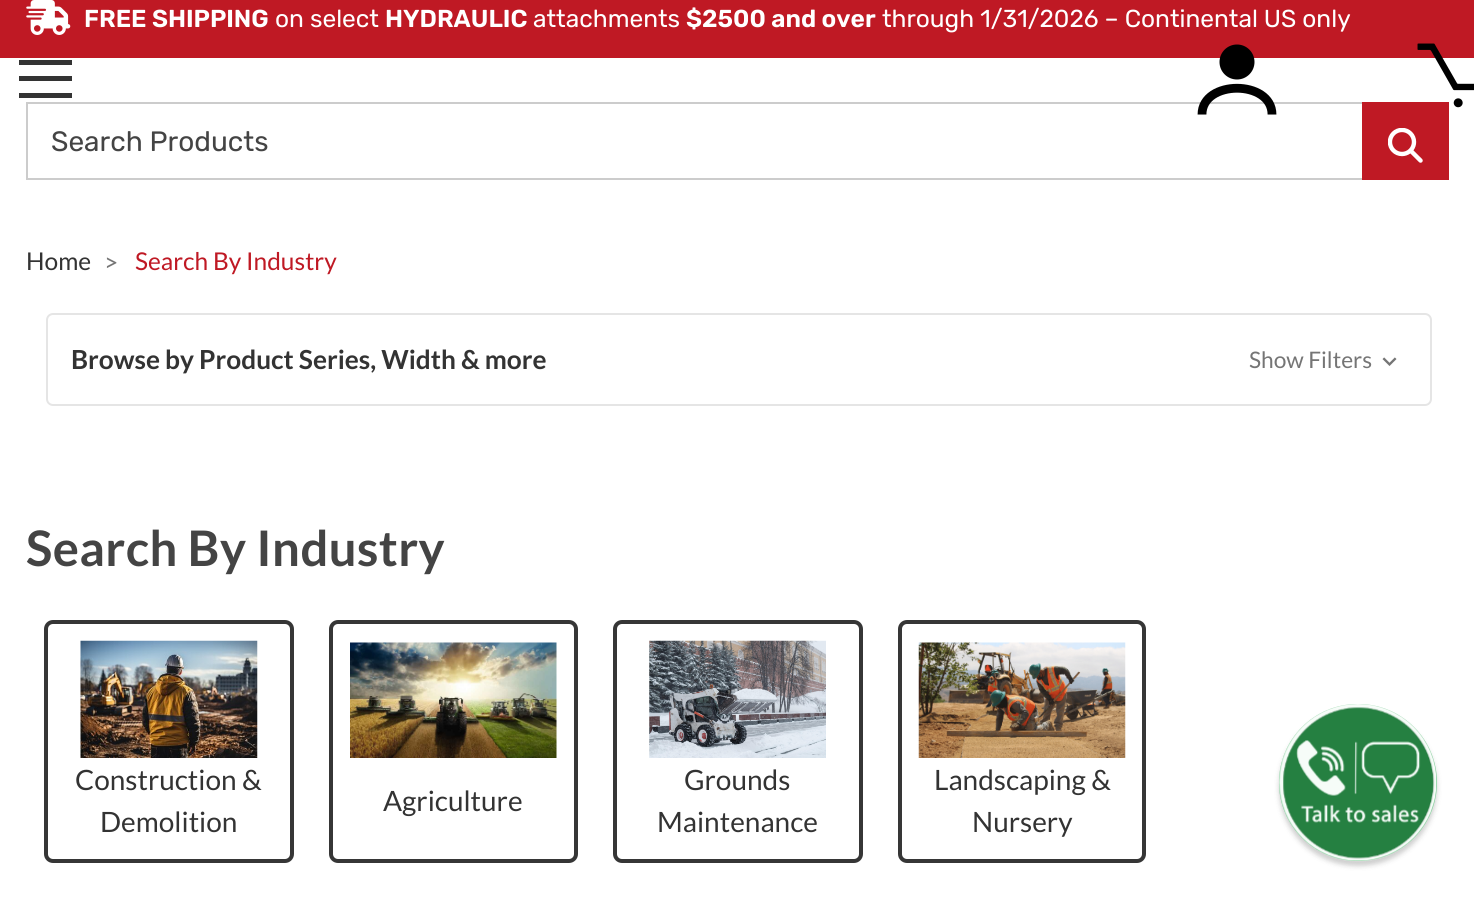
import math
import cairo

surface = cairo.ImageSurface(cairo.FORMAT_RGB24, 1474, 899)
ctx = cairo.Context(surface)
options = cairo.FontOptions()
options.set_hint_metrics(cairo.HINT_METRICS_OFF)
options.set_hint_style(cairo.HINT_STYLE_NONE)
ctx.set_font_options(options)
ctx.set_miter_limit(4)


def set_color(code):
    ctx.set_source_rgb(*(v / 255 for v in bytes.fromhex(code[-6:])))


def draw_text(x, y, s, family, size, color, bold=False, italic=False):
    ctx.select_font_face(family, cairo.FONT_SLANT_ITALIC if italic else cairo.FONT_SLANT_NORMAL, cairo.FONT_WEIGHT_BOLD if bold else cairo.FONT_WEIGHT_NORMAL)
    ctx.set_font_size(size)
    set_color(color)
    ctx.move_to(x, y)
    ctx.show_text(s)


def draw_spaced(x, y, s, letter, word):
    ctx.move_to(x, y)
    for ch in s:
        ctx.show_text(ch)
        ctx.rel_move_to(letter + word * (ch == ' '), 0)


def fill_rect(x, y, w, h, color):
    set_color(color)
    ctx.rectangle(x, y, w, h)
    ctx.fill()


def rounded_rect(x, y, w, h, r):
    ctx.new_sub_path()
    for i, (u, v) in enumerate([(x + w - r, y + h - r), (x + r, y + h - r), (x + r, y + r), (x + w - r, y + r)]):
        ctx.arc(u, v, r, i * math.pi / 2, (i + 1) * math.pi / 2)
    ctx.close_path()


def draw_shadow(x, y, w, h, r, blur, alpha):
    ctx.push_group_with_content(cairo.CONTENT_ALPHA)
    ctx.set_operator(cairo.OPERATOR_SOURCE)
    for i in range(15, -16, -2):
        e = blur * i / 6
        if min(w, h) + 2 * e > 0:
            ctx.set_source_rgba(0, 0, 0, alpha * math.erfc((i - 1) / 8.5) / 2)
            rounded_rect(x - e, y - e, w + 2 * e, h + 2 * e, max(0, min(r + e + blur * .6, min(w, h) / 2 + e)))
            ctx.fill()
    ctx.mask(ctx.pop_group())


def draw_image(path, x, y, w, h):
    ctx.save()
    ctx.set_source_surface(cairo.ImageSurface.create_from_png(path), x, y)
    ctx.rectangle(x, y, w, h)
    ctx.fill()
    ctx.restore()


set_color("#ffffff")
ctx.paint()
fill_rect(0, 0, 1474, 58, "#bf1924")
draw_image("assets/img1.png", 26, 0, 45, 35)
draw_text(84, 27, "FREE SHIPPING", "Rubik SemiBold", 24.5, "#ffffff")
draw_text(275, 27, "on select", "Rubik", 24.5, "#ffffff")
draw_text(385, 27, "HYDRAULIC", "Rubik SemiBold", 24.5, "#ffffff")
draw_text(533, 27, "attachments", "Rubik", 24.5, "#ffffff")
draw_text(686, 27, "$2500 and over", "Rubik SemiBold", 24.5, "#ffffff")
draw_text(882, 27, "through 1/31/2026 – Continental US only", "Rubik", 24.5, "#ffffff")
fill_rect(19, 60, 53, 5, "#333333")
fill_rect(19, 76, 53, 5, "#333333")
fill_rect(19, 93, 53, 5, "#333333")
set_color("#000000")
ctx.new_path()
ctx.arc(1237, 62, 17.5, 0, 2 * math.pi)
ctx.fill()
ctx.rectangle(27, 103, 1421, 76)
set_color("#cccccc")
ctx.stroke()
ctx.new_path()
ctx.move_to(1202, 114.5)
ctx.curve_to(1202, 79.5, 1272, 79.5, 1272, 114.5)
set_color("#000000")
ctx.set_line_width(8.8)
ctx.stroke()
fill_rect(1362, 102, 87, 78, "#bf1924")
draw_image("assets/img2.png", 1417, 43, 57, 65)
draw_text(51, 151, "Search Products", "Rubik", 28, "#444444")
draw_image("assets/img3.png", 1388, 128, 35, 35)
draw_text(26, 270, "Home", "Lato", 24.5, "#333333")
draw_text(104, 271, ">", "Lato", 24.5, "#757575")
draw_text(135, 270, "Search By Industry", "Lato", 24.5, "#bf1924")
rounded_rect(47, 314, 1384, 91, 6)
set_color("#e5e5e5")
ctx.set_line_width(2)
ctx.stroke()
draw_text(71, 369, "Browse by Product Series, Width & more", "Lato", 26.25, "#333333", bold=True)
draw_text(1249, 368, "Show Filters", "Lato", 22.75, "#757575")
draw_image("assets/img4.png", 1382, 357, 15, 9)
ctx.select_font_face("Lato", cairo.FONT_SLANT_NORMAL, cairo.FONT_WEIGHT_BOLD)
ctx.set_font_size(49)
set_color("#444444")
draw_spaced(26, 566, "Search By Industry", 0.4, 0)
rounded_rect(46, 622, 246, 239, 7)
set_color("#363636")
ctx.set_line_width(4)
ctx.stroke()
draw_image("assets/img5.png", 80, 640, 178, 118)
draw_text(75, 790, "Construction &", "Lato", 28, "#333333")
draw_text(100, 832, "Demolition", "Lato", 28, "#333333")
rounded_rect(331, 622, 245, 239, 7)
set_color("#363636")
ctx.stroke()
draw_image("assets/img6.png", 350, 642, 207, 116)
draw_text(383, 811, "Agriculture", "Lato", 28, "#333333")
rounded_rect(615, 622, 246, 239, 7)
set_color("#363636")
ctx.stroke()
draw_image("assets/img7.png", 649, 640, 177, 118)
draw_text(684, 790, "Grounds", "Lato", 28, "#333333")
draw_text(657, 832, "Maintenance", "Lato", 28, "#333333")
rounded_rect(900, 622, 244, 239, 7)
set_color("#363636")
ctx.stroke()
draw_image("assets/img8.png", 918, 642, 208, 116)
draw_text(934, 790, "Landscaping &", "Lato", 28, "#333333")
draw_text(972, 832, "Nursery", "Lato", 28, "#333333")
set_color("#0d0d0d")
draw_shadow(1279, 709, 158, 157, 78.5, 2.5, 0.2)
set_color("#57be77")
rounded_rect(1279, 704, 158, 157, 78.5)
ctx.fill()
draw_image("assets/img9.png", 1279, 704, 158, 158)
surface.write_to_png("output.png")
